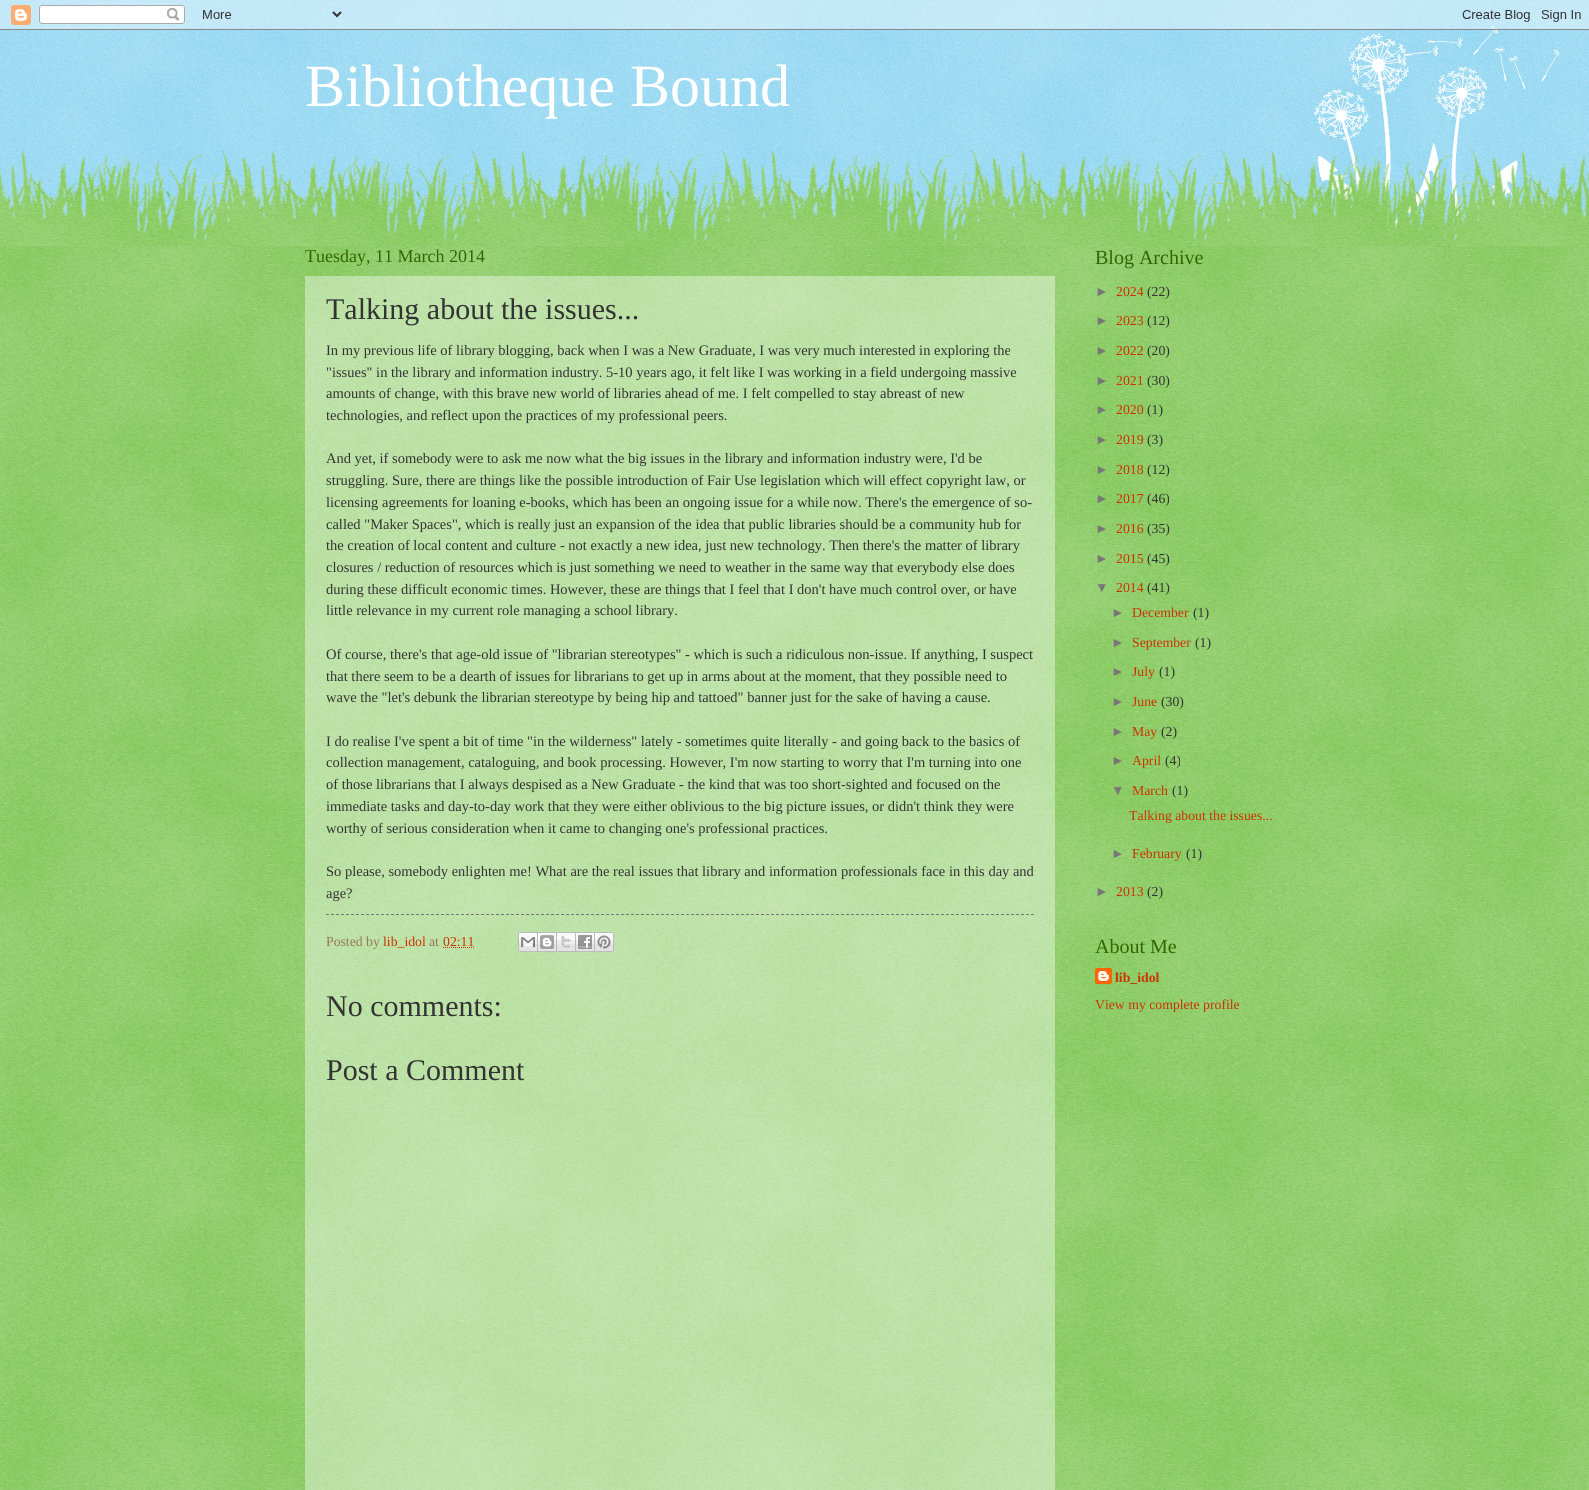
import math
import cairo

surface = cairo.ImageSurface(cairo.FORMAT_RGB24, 1589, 1490)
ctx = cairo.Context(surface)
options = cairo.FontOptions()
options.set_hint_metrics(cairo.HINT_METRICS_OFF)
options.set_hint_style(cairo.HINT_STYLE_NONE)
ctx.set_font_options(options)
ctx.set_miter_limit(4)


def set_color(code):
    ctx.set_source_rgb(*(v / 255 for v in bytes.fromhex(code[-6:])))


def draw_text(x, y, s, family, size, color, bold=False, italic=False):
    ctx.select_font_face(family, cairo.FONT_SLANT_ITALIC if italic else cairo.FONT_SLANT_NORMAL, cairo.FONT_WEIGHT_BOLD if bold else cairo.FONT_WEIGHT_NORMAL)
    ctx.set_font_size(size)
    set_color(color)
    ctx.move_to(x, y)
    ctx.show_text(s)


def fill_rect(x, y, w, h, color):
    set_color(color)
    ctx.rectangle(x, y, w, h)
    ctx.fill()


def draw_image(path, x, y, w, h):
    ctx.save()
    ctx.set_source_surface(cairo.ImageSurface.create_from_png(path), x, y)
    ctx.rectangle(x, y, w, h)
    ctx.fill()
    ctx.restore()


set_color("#77ccee")
ctx.paint()
draw_image("assets/img1.png", 0, 0, 1589, 241)
draw_image("assets/img4.png", 1309, 26, 250, 215)
draw_image("assets/img2.png", 0, 0, 1589, 30)
draw_text(305, 106, "Bibliotheque Bound", "Liberation Serif", 60, "#ffffff")
fill_rect(0, 246, 1589, 1244, "#66bb33")
draw_image("assets/img3.png", 0, 246, 1589, 1244)
draw_image("assets/img5.png", 0, 150, 1589, 96)
draw_text(305, 262, "Tuesday, 11 March 2014", "Liberation Serif", 18, "#336600")
ctx.set_source_rgba(1, 1, 1, 0.4)
ctx.rectangle(305, 276, 750, 1214)
ctx.fill()
draw_text(326, 319, "Talking about the issues...", "Liberation Serif", 30, "#333333")
draw_text(326, 355, "In my previous life of library blogging, back when I was a New Graduate, I was very much interested in exploring the", "Liberation Serif", 14.5, "#333333")
draw_text(326, 377, "\"issues\" in the library and information industry. 5-10 years ago, it felt like I was working in a field undergoing massive", "Liberation Serif", 14.5, "#333333")
draw_text(326, 398, "amounts of change, with this brave new world of libraries ahead of me. I felt compelled to stay abreast of new", "Liberation Serif", 14.5, "#333333")
draw_text(326, 420, "technologies, and reflect upon the practices of my professional peers.", "Liberation Serif", 14.5, "#333333")
draw_text(326, 463, "And yet, if somebody were to ask me now what the big issues in the library and information industry were, I'd be", "Liberation Serif", 14.5, "#333333")
draw_text(326, 485, "struggling. Sure, there are things like the possible introduction of Fair Use legislation which will effect copyright law, or", "Liberation Serif", 14.5, "#333333")
draw_text(326, 507, "licensing agreements for loaning e-books, which has been an ongoing issue for a while now. There's the emergence of so-", "Liberation Serif", 14.5, "#333333")
draw_text(326, 529, "called \"Maker Spaces\", which is really just an expansion of the idea that public libraries should be a community hub for", "Liberation Serif", 14.5, "#333333")
draw_text(326, 550, "the creation of local content and culture - not exactly a new idea, just new technology. Then there's the matter of library", "Liberation Serif", 14.5, "#333333")
draw_text(326, 572, "closures / reduction of resources which is just something we need to weather in the same way that everybody else does", "Liberation Serif", 14.5, "#333333")
draw_text(326, 594, "during these difficult economic times. However, these are things that I feel that I don't have much control over, or have", "Liberation Serif", 14.5, "#333333")
draw_text(326, 615, "little relevance in my current role managing a school library.", "Liberation Serif", 14.5, "#333333")
draw_text(326, 659, "Of course, there's that age-old issue of \"librarian stereotypes\" - which is such a ridiculous non-issue. If anything, I suspect", "Liberation Serif", 14.5, "#333333")
draw_text(326, 681, "that there seem to be a dearth of issues for librarians to get up in arms about at the moment, that they possible need to", "Liberation Serif", 14.5, "#333333")
draw_text(326, 702, "wave the \"let's debunk the librarian stereotype by being hip and tattoed\" banner just for the sake of having a cause.", "Liberation Serif", 14.5, "#333333")
draw_text(326, 746, "I do realise I've spent a bit of time \"in the wilderness\" lately - sometimes quite literally - and going back to the basics of", "Liberation Serif", 14.5, "#333333")
draw_text(326, 767, "collection management, cataloguing, and book processing. However, I'm now starting to worry that I'm turning into one", "Liberation Serif", 14.5, "#333333")
draw_text(326, 789, "of those librarians that I always despised as a New Graduate - the kind that was too short-sighted and focused on the", "Liberation Serif", 14.5, "#333333")
draw_text(326, 811, "immediate tasks and day-to-day work that they were either oblivious to the big picture issues, or didn't think they were", "Liberation Serif", 14.5, "#333333")
draw_text(326, 833, "worthy of serious consideration when it came to changing one's professional practices.", "Liberation Serif", 14.5, "#333333")
draw_text(326, 876, "So please, somebody enlighten me! What are the real issues that library and information professionals face in this day and", "Liberation Serif", 14.5, "#333333")
draw_text(326, 898, "age?", "Liberation Serif", 14.5, "#333333")
ctx.new_path()
ctx.move_to(326, 914.5)
ctx.line_to(1034, 914.5)
set_color("#777777")
ctx.set_line_width(1)
ctx.set_dash([3, 2])
ctx.stroke()
draw_text(326, 946, "Posted by", "Liberation Serif", 13.75, "#997755")
draw_text(383, 946, "lib_idol", "Liberation Serif", 13.75, "#cc3300")
draw_text(429, 946, "at", "Liberation Serif", 13.75, "#997755")
draw_text(443, 946, "02:11", "Liberation Serif", 13.75, "#cc3300")
ctx.new_path()
ctx.move_to(443, 947.5)
ctx.line_to(474, 947.5)
ctx.set_dash([1, 1])
ctx.stroke()
draw_image("assets/img6.png", 518, 932, 20, 20)
draw_image("assets/img7.png", 538, 932, 19, 20)
draw_image("assets/img8.png", 557, 932, 19, 20)
draw_image("assets/img9.png", 576, 932, 19, 20)
draw_image("assets/img10.png", 595, 932, 19, 20)
draw_text(326, 1016, "No comments:", "Liberation Serif", 30, "#333333")
draw_text(326, 1080, "Post a Comment", "Liberation Serif", 30, "#333333")
draw_text(1095, 264, "Blog Archive", "Liberation Serif", 20, "#336600")
draw_text(1095, 296, "►", "Liberation Sans", 13.75, "#777777")
draw_text(1116, 296, "2024", "Liberation Serif", 13.75, "#cc3300")
draw_text(1147, 296, "(22)", "Liberation Serif", 13.75, "#333333")
draw_text(1095, 325, "►", "Liberation Sans", 13.75, "#777777")
draw_text(1116, 325, "2023", "Liberation Serif", 13.75, "#cc3300")
draw_text(1147, 325, "(12)", "Liberation Serif", 13.75, "#333333")
draw_text(1095, 355, "►", "Liberation Sans", 13.75, "#777777")
draw_text(1116, 355, "2022", "Liberation Serif", 13.75, "#cc3300")
draw_text(1147, 355, "(20)", "Liberation Serif", 13.75, "#333333")
draw_text(1095, 385, "►", "Liberation Sans", 13.75, "#777777")
draw_text(1116, 385, "2021", "Liberation Serif", 13.75, "#cc3300")
draw_text(1147, 385, "(30)", "Liberation Serif", 13.75, "#333333")
draw_text(1095, 414, "►", "Liberation Sans", 13.75, "#777777")
draw_text(1116, 414, "2020", "Liberation Serif", 13.75, "#cc3300")
draw_text(1147, 414, "(1)", "Liberation Serif", 13.75, "#333333")
draw_text(1095, 444, "►", "Liberation Sans", 13.75, "#777777")
draw_text(1116, 444, "2019", "Liberation Serif", 13.75, "#cc3300")
draw_text(1147, 444, "(3)", "Liberation Serif", 13.75, "#333333")
draw_text(1095, 474, "►", "Liberation Sans", 13.75, "#777777")
draw_text(1116, 474, "2018", "Liberation Serif", 13.75, "#cc3300")
draw_text(1147, 474, "(12)", "Liberation Serif", 13.75, "#333333")
draw_text(1095, 503, "►", "Liberation Sans", 13.75, "#777777")
draw_text(1116, 503, "2017", "Liberation Serif", 13.75, "#cc3300")
draw_text(1147, 503, "(46)", "Liberation Serif", 13.75, "#333333")
draw_text(1095, 533, "►", "Liberation Sans", 13.75, "#777777")
draw_text(1116, 533, "2016", "Liberation Serif", 13.75, "#cc3300")
draw_text(1147, 533, "(35)", "Liberation Serif", 13.75, "#333333")
draw_text(1095, 563, "►", "Liberation Sans", 13.75, "#777777")
draw_text(1116, 563, "2015", "Liberation Serif", 13.75, "#cc3300")
draw_text(1147, 563, "(45)", "Liberation Serif", 13.75, "#333333")
draw_text(1095, 592, "▼", "Liberation Sans", 13.75, "#777777")
draw_text(1116, 592, "2014", "Liberation Serif", 13.75, "#cc3300")
draw_text(1147, 592, "(41)", "Liberation Serif", 13.75, "#333333")
draw_text(1111, 617, "►", "Liberation Sans", 13.75, "#777777")
draw_text(1132, 617, "December", "Liberation Serif", 13.75, "#cc3300")
draw_text(1193, 617, "(1)", "Liberation Serif", 13.75, "#333333")
draw_text(1111, 647, "►", "Liberation Sans", 13.75, "#777777")
draw_text(1132, 647, "September", "Liberation Serif", 13.75, "#cc3300")
draw_text(1195, 647, "(1)", "Liberation Serif", 13.75, "#333333")
draw_text(1111, 676, "►", "Liberation Sans", 13.75, "#777777")
draw_text(1132, 676, "July", "Liberation Serif", 13.75, "#cc3300")
draw_text(1159, 676, "(1)", "Liberation Serif", 13.75, "#333333")
draw_text(1111, 706, "►", "Liberation Sans", 13.75, "#777777")
draw_text(1132, 706, "June", "Liberation Serif", 13.75, "#cc3300")
draw_text(1161, 706, "(30)", "Liberation Serif", 13.75, "#333333")
draw_text(1111, 736, "►", "Liberation Sans", 13.75, "#777777")
draw_text(1132, 736, "May", "Liberation Serif", 13.75, "#cc3300")
draw_text(1161, 736, "(2)", "Liberation Serif", 13.75, "#333333")
draw_text(1111, 765, "►", "Liberation Sans", 13.75, "#777777")
draw_text(1132, 765, "April", "Liberation Serif", 13.75, "#cc3300")
draw_text(1165, 765, "(4)", "Liberation Serif", 13.75, "#333333")
draw_text(1111, 795, "▼", "Liberation Sans", 13.75, "#777777")
draw_text(1132, 795, "March", "Liberation Serif", 13.75, "#cc3300")
draw_text(1172, 795, "(1)", "Liberation Serif", 13.75, "#333333")
draw_text(1129, 820, "Talking about the issues...", "Liberation Serif", 13.75, "#cc3300")
draw_text(1111, 858, "►", "Liberation Sans", 13.75, "#777777")
draw_text(1132, 858, "February", "Liberation Serif", 13.75, "#cc3300")
draw_text(1186, 858, "(1)", "Liberation Serif", 13.75, "#333333")
draw_text(1095, 896, "►", "Liberation Sans", 13.75, "#777777")
draw_text(1116, 896, "2013", "Liberation Serif", 13.75, "#cc3300")
draw_text(1147, 896, "(2)", "Liberation Serif", 13.75, "#333333")
draw_text(1095, 953, "About Me", "Liberation Serif", 20, "#336600")
draw_image("assets/img11.png", 1095, 968, 17, 16)
draw_text(1115, 982, "lib_idol", "Liberation Serif", 13.75, "#cc3300", bold=True)
draw_text(1095, 1009, "View my complete profile", "Liberation Serif", 13.75, "#cc3300")
surface.write_to_png("output.png")
